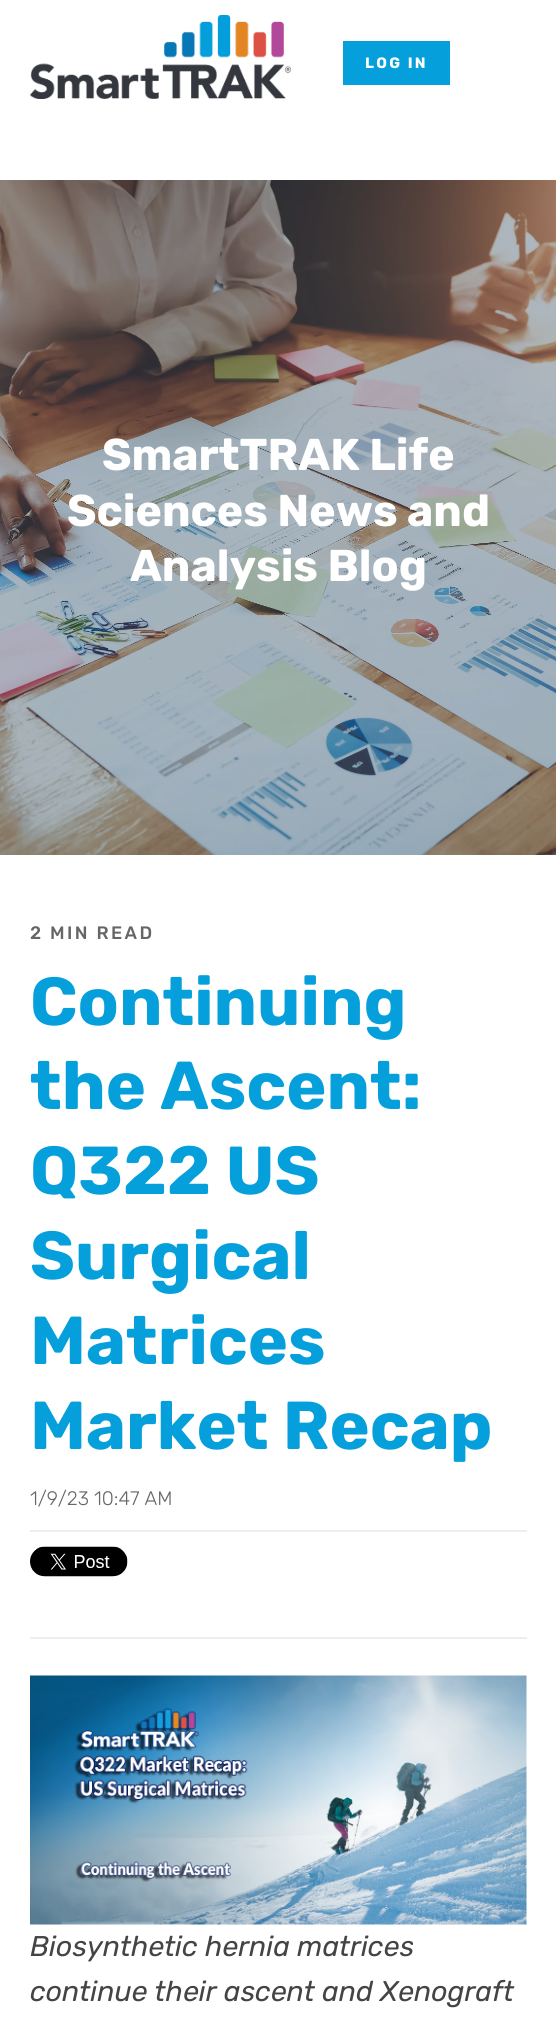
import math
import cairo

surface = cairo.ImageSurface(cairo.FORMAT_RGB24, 556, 2040)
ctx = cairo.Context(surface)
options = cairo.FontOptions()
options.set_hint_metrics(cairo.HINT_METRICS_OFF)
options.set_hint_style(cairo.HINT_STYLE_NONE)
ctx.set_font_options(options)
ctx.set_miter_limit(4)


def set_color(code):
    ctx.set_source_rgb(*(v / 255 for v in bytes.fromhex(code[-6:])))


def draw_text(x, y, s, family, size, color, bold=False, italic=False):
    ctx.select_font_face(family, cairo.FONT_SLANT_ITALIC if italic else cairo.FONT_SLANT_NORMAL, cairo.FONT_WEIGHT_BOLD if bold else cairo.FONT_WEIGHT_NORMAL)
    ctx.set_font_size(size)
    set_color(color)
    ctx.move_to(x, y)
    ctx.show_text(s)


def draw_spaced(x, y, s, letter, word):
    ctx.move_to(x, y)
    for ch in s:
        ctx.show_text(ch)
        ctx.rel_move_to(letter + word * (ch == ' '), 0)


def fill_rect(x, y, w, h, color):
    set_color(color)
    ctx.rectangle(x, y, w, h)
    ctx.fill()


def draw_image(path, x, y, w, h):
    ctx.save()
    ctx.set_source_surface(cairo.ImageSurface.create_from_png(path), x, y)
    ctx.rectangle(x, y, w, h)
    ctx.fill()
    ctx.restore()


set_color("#ffffff")
ctx.paint()
draw_image("assets/img1.png", 30, 15, 261, 84)
fill_rect(343, 41, 107, 44, "#05a0db")
ctx.select_font_face("Rubik", cairo.FONT_SLANT_NORMAL, cairo.FONT_WEIGHT_BOLD)
ctx.set_font_size(15)
set_color("#ffffff")
draw_spaced(365, 68, "LOG IN", 2.25, 0)
draw_image("assets/img2.png", 0, 180, 556, 675)
draw_text(102, 470, "SmartTRAK Life", "Rubik", 44.5, "#ffffff", bold=True)
draw_text(67, 526, "Sciences News and", "Rubik", 44.5, "#ffffff", bold=True)
draw_text(130, 581, "Analysis Blog", "Rubik", 44.5, "#ffffff", bold=True)
ctx.select_font_face("Rubik Medium")
ctx.set_font_size(18)
set_color("#666666")
draw_spaced(30, 939, "2 MIN READ", 2.4, 0)
draw_text(30, 1025, "Continuing", "Rubik", 67.75, "#05a0db", bold=True)
draw_text(30, 1109, "the Ascent:", "Rubik", 67.75, "#05a0db", bold=True)
draw_text(30, 1194, "Q322 US", "Rubik", 67.75, "#05a0db", bold=True)
draw_text(30, 1279, "Surgical", "Rubik", 67.75, "#05a0db", bold=True)
draw_text(30, 1364, "Matrices", "Rubik", 67.75, "#05a0db", bold=True)
draw_text(30, 1449, "Market Recap", "Rubik", 67.75, "#05a0db", bold=True)
draw_text(30, 1505, "1/9/23 10:47 AM", "Rubik Light", 19.5, "#666666")
fill_rect(30, 1530, 497, 2, "#eeeeee")
fill_rect(30, 1637, 497, 2, "#eeeeee")
draw_image("assets/img3.png", 30, 1546, 98, 31)
draw_image("assets/img4.png", 30, 1675, 497, 250)
draw_text(30, 1956, "Biosynthetic hernia matrices", "Rubik", 28.5, "#444444", italic=True)
draw_text(30, 2001, "continue their ascent and Xenograft", "Rubik", 28.5, "#444444", italic=True)
surface.write_to_png("output.png")
